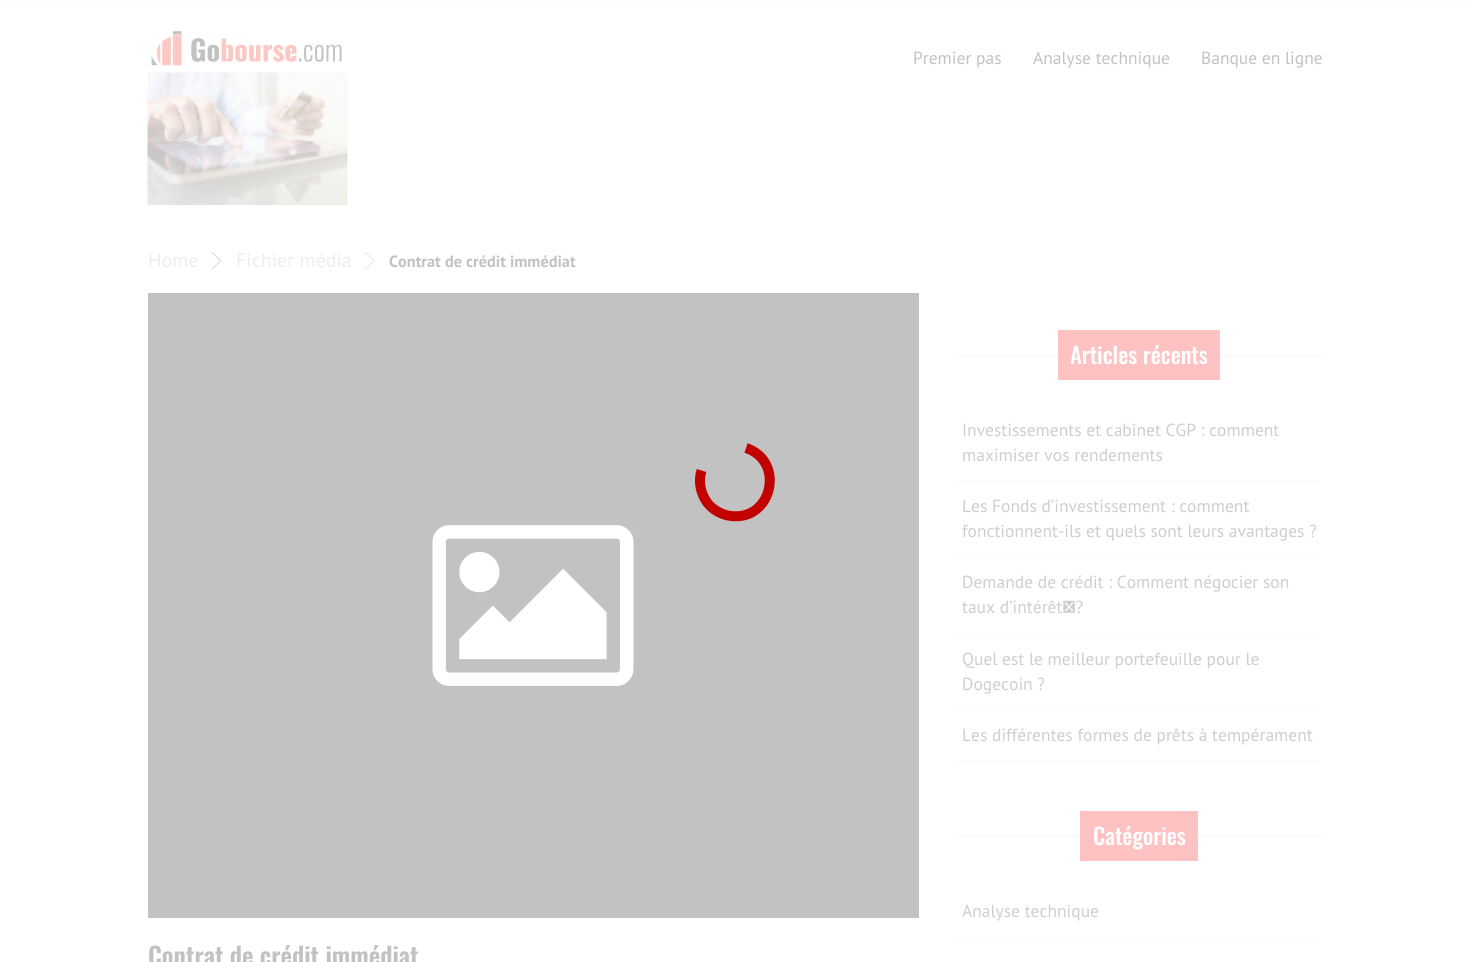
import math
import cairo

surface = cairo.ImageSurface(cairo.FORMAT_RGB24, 1469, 962)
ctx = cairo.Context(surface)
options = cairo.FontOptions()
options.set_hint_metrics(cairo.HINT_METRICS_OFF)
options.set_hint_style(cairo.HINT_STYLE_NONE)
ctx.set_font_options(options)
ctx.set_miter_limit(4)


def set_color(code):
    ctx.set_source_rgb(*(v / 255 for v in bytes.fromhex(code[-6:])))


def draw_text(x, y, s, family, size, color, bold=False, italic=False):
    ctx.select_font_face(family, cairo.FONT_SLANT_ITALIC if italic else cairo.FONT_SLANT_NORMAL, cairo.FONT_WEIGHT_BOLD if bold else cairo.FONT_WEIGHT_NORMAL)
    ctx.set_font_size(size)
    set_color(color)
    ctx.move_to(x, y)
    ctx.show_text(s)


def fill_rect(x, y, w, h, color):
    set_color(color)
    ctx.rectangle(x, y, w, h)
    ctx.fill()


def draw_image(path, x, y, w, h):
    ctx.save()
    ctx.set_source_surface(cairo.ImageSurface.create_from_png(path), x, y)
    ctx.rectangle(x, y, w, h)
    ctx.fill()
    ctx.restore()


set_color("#ffffff")
ctx.paint()
fill_rect(0, 0, 1469, 1, "#fbfbfb")
draw_image("assets/img1.png", 151, 31, 191, 35)
draw_image("assets/img2.png", 147, 72, 201, 133)
draw_text(913, 64, "Premier pas", "PT Sans", 17.5, "#c2c2c2")
draw_text(1033, 64, "Analyse technique", "PT Sans", 17.5, "#c2c2c2")
draw_text(1201, 64, "Banque en ligne", "PT Sans", 17.5, "#c2c2c2")
draw_text(148, 267, "Home", "PT Sans", 20, "#ededed")
set_color("#dadada")
ctx.new_path()
ctx.move_to(211, 252)
ctx.line_to(212.5, 252)
ctx.line_to(221.5, 261)
ctx.line_to(220, 261)
ctx.close_path()
ctx.fill()
ctx.new_path()
ctx.move_to(220, 260.5)
ctx.line_to(221.5, 260.5)
ctx.line_to(212.5, 269.5)
ctx.line_to(211, 269.5)
ctx.close_path()
ctx.fill()
draw_text(236, 267, "Fichier média", "PT Sans", 20, "#ededed")
set_color("#dadada")
ctx.new_path()
ctx.move_to(364.5, 252)
ctx.line_to(365.5, 252)
ctx.line_to(374.5, 261)
ctx.line_to(373.5, 261)
ctx.close_path()
ctx.fill()
ctx.new_path()
ctx.move_to(373.5, 260.5)
ctx.line_to(374.5, 260.5)
ctx.line_to(365.5, 269.5)
ctx.line_to(364.5, 269.5)
ctx.close_path()
ctx.fill()
draw_text(389, 267, "Contrat de crédit immédiat", "PT Sans", 16.25, "#c2c2c2", bold=True)
fill_rect(956, 355, 367, 1, "#f8f8f8")
fill_rect(1058, 330, 162, 50, "#ffc2c2")
draw_text(1070, 364, "Articles récents", "Oswald Medium", 22.5, "#ffffff")
ctx.new_path()
ctx.move_to(956, 480.5)
ctx.line_to(1322.5, 480.5)
set_color("#f6f6f6")
ctx.set_line_width(1.2)
ctx.set_dash([1.25, 1.25])
ctx.stroke()
draw_text(962, 436, "Investissements et cabinet CGP : comment", "PT Sans", 17.5, "#cecece")
draw_text(962, 461, "maximiser vos rendements", "PT Sans", 17.5, "#cecece")
ctx.new_path()
ctx.move_to(956, 557)
ctx.line_to(1322.5, 557)
set_color("#f6f6f6")
ctx.stroke()
draw_text(962, 512, "Les Fonds d’investissement : comment", "PT Sans", 17.5, "#cecece")
draw_text(962, 537, "fonctionnent-ils et quels sont leurs avantages ?", "PT Sans", 17.5, "#cecece")
ctx.new_path()
ctx.move_to(956, 633)
ctx.line_to(1322.5, 633)
set_color("#f6f6f6")
ctx.stroke()
draw_text(962, 588, "Demande de crédit : Comment négocier son", "PT Sans", 17.5, "#cecece")
draw_text(962, 613, "taux d’intérêt ?", "PT Sans", 17.5, "#cecece")
ctx.new_path()
ctx.move_to(956, 709.5)
ctx.line_to(1322.5, 709.5)
set_color("#f6f6f6")
ctx.stroke()
draw_text(962, 665, "Quel est le meilleur portefeuille pour le", "PT Sans", 17.5, "#cecece")
draw_text(962, 690, "Dogecoin ?", "PT Sans", 17.5, "#cecece")
ctx.new_path()
ctx.move_to(956, 760.5)
ctx.line_to(1322.5, 760.5)
set_color("#f6f6f6")
ctx.stroke()
draw_text(962, 741, "Les différentes formes de prêts à tempérament", "PT Sans", 17.5, "#cecece")
fill_rect(956, 836, 367, 1, "#f8f8f8")
fill_rect(1080, 811, 118, 50, "#ffc2c2")
draw_text(1093, 845, "Catégories", "Oswald Medium", 22.5, "#ffffff")
ctx.new_path()
ctx.move_to(956, 937)
ctx.line_to(1322.5, 937)
set_color("#f6f6f6")
ctx.stroke()
draw_text(962, 917, "Analyse technique", "PT Sans", 17.5, "#cecece")
fill_rect(148, 293, 771, 625, "#c2c2c2")
draw_image("assets/img3.png", 432, 525, 202, 161)
draw_text(148, 966, "Contrat de crédit immédiat", "Oswald SemiBold", 25, "#c2c2c2")
ctx.new_path()
ctx.move_to(746, 448)
ctx.curve_to(785.5, 461, 772.5, 521, 731, 516)
ctx.curve_to(722, 515, 713, 510, 707.5, 503)
ctx.curve_to(700.5, 493.5, 698, 481.5, 701.5, 470.5)
set_color("#c20000")
ctx.set_line_width(10)
ctx.set_dash([])
ctx.stroke()
surface.write_to_png("output.png")
